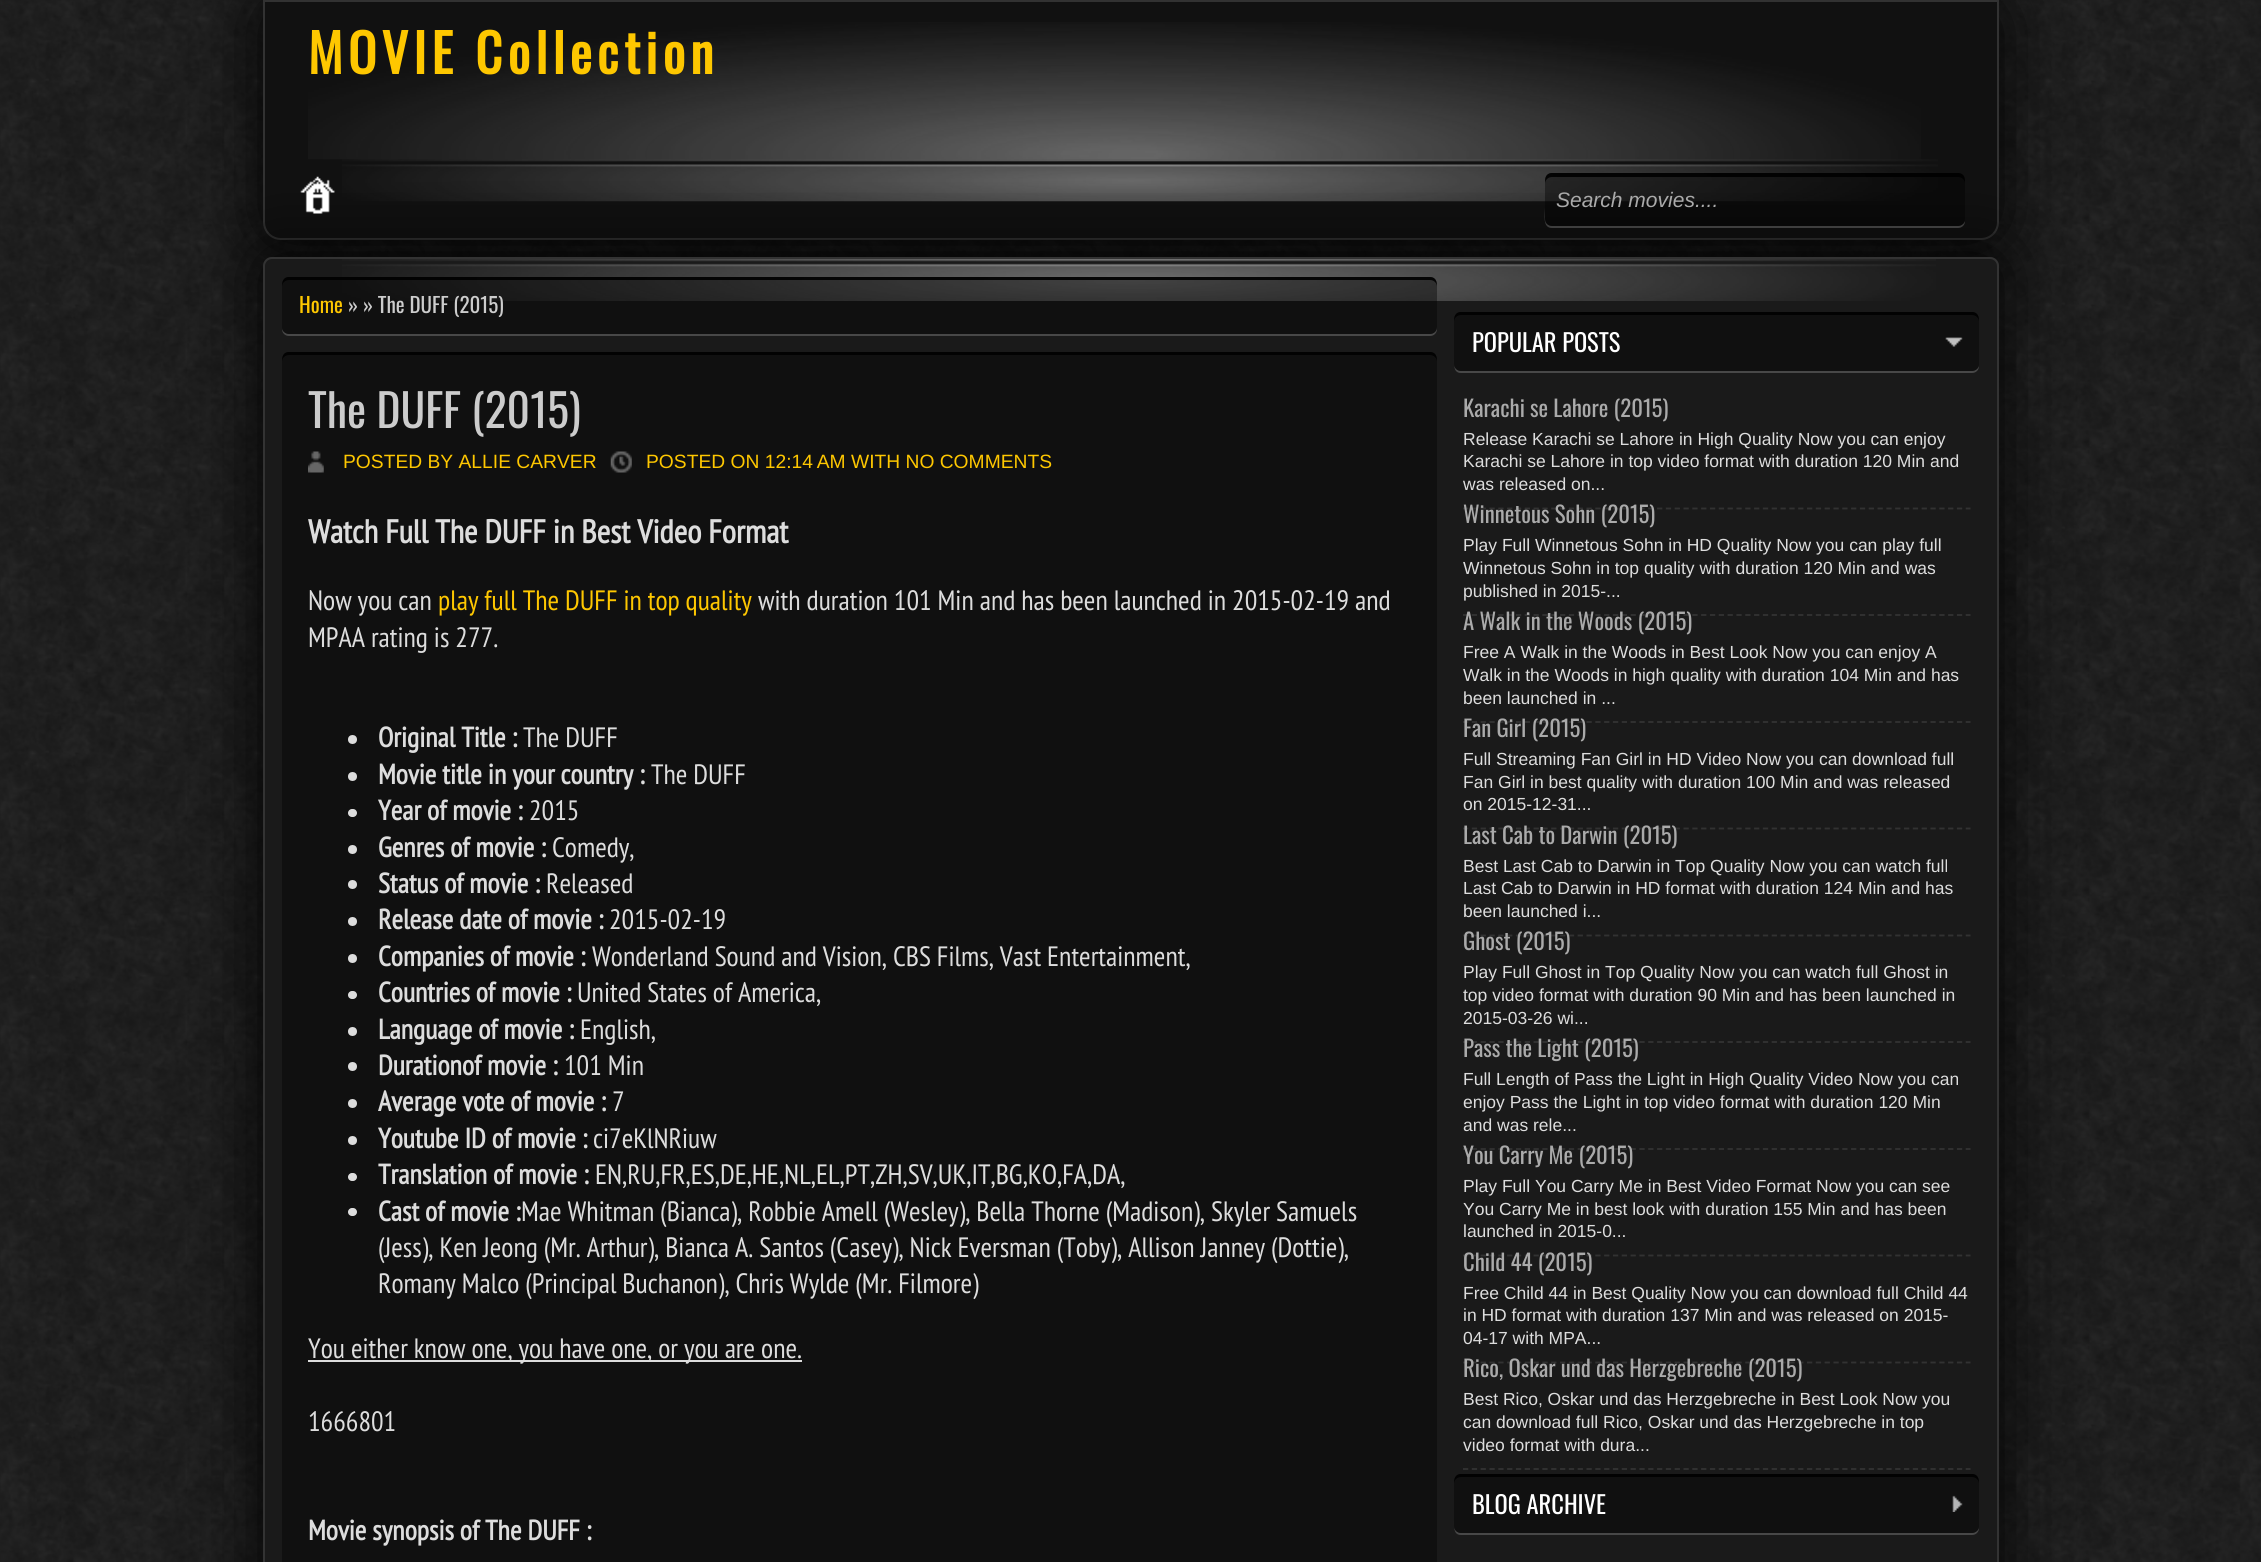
import math
import cairo

surface = cairo.ImageSurface(cairo.FORMAT_RGB24, 2261, 1562)
ctx = cairo.Context(surface)
options = cairo.FontOptions()
options.set_hint_metrics(cairo.HINT_METRICS_OFF)
options.set_hint_style(cairo.HINT_STYLE_NONE)
ctx.set_font_options(options)
ctx.set_miter_limit(4)


def set_color(code):
    ctx.set_source_rgb(*(v / 255 for v in bytes.fromhex(code[-6:])))


def draw_text(x, y, s, family, size, color, bold=False, italic=False):
    ctx.select_font_face(family, cairo.FONT_SLANT_ITALIC if italic else cairo.FONT_SLANT_NORMAL, cairo.FONT_WEIGHT_BOLD if bold else cairo.FONT_WEIGHT_NORMAL)
    ctx.set_font_size(size)
    set_color(color)
    ctx.move_to(x, y)
    ctx.show_text(s)


def draw_spaced(x, y, s, letter, word):
    ctx.move_to(x, y)
    for ch in s:
        ctx.show_text(ch)
        ctx.rel_move_to(letter + word * (ch == ' '), 0)


def fill_rect(x, y, w, h, color):
    set_color(color)
    ctx.rectangle(x, y, w, h)
    ctx.fill()


def rounded_rect(x, y, w, h, r):
    ctx.new_sub_path()
    for i, (u, v) in enumerate([(x + w - r, y + h - r), (x + r, y + h - r), (x + r, y + r), (x + w - r, y + r)]):
        ctx.arc(u, v, r, i * math.pi / 2, (i + 1) * math.pi / 2)
    ctx.close_path()


def draw_shadow(x, y, w, h, r, blur, alpha):
    ctx.push_group_with_content(cairo.CONTENT_ALPHA)
    ctx.set_operator(cairo.OPERATOR_SOURCE)
    for i in range(15, -16, -2):
        e = blur * i / 6
        if min(w, h) + 2 * e > 0:
            ctx.set_source_rgba(0, 0, 0, alpha * math.erfc((i - 1) / 8.5) / 2)
            rounded_rect(x - e, y - e, w + 2 * e, h + 2 * e, max(0, min(r + e + blur * .6, min(w, h) / 2 + e)))
            ctx.fill()
    ctx.mask(ctx.pop_group())


def draw_image(path, x, y, w, h):
    ctx.save()
    ctx.set_source_surface(cairo.ImageSurface.create_from_png(path), x, y)
    ctx.rectangle(x, y, w, h)
    ctx.fill()
    ctx.restore()


set_color("#000000")
ctx.paint()
draw_image("assets/img1.png", 0, 0, 2261, 1562)
draw_shadow(263, 0, 1736, 240, 18, 35, 1)
set_color("#111111")
ctx.new_path()
ctx.move_to(264, 1)
ctx.line_to(1998, 1)
ctx.line_to(1998, 222)
ctx.curve_to(1998, 231.5, 1990.5, 239, 1981, 239)
ctx.line_to(281, 239)
ctx.curve_to(271.5, 239, 264, 231.5, 264, 222)
ctx.close_path()
ctx.fill_preserve()
set_color("#323232")
ctx.stroke()
draw_image("assets/img2.png", 308, 22, 1613, 138)
ctx.select_font_face("Oswald", cairo.FONT_SLANT_NORMAL, cairo.FONT_WEIGHT_BOLD)
ctx.set_font_size(52.5)
set_color("#fec700")
draw_spaced(308, 74, "MOVIE Collection", 5.25, 0)
draw_image("assets/img3.png", 342, 159, 1596, 43)
set_color("#000000")
draw_shadow(263, 257, 1736, 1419, 9, 35, 1)
draw_image("assets/img4.png", 300, 176, 35, 38)
set_color("#3e3e3e")
ctx.new_path()
ctx.move_to(1545, 180)
ctx.line_to(1545, 208)
ctx.curve_to(1545, 214, 1542, 228, 1552, 228)
ctx.line_to(1958, 228)
ctx.curve_to(1962, 228, 1965, 225, 1965, 221)
ctx.curve_to(1964, 224, 1961, 226, 1958, 226)
ctx.line_to(1552, 226)
ctx.curve_to(1548, 226, 1545, 223, 1545, 219)
ctx.close_path()
ctx.fill()
ctx.set_source_rgba(0, 0, 0, 0.4)
rounded_rect(1545, 173, 420, 53, 7)
ctx.fill()
ctx.set_source_rgba(0, 0, 0, 0.9)
ctx.new_path()
ctx.move_to(1552, 177)
ctx.line_to(1958, 177)
ctx.curve_to(1962, 177, 1965, 180, 1965, 184)
ctx.curve_to(1965, 179, 1965, 174, 1959, 173)
ctx.line_to(1551, 173)
ctx.curve_to(1545, 174, 1545, 179, 1545, 184)
ctx.curve_to(1545, 180, 1548, 177, 1552, 177)
ctx.close_path()
ctx.fill()
draw_text(1556, 207, "Search movies....", "Liberation Sans", 21, "#aaaaaa", italic=True)
set_color("#1a1a1a")
rounded_rect(263, 257, 1736, 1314, 9)
ctx.fill()
draw_image("assets/img5.png", 342, 259, 1594, 42)
rounded_rect(264, 258, 1734, 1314, 8)
set_color("#333333")
ctx.stroke()
set_color("#484848")
ctx.new_path()
ctx.move_to(282, 329)
ctx.curve_to(282, 333, 285, 336, 289, 336)
ctx.line_to(1430, 336)
ctx.curve_to(1434, 336, 1437, 333, 1437, 329)
ctx.line_to(1437, 283)
ctx.line_to(1437, 327)
ctx.curve_to(1437, 331, 1434, 334, 1430, 334)
ctx.line_to(289, 334)
ctx.curve_to(286, 334, 283, 332, 282, 329)
ctx.close_path()
ctx.fill()
ctx.set_source_rgba(0, 0, 0, 0.4)
rounded_rect(282, 277, 1155, 57, 7)
ctx.fill()
ctx.set_source_rgba(0, 0, 0, 0.9)
ctx.new_path()
ctx.move_to(289, 280)
ctx.line_to(1430, 280)
ctx.curve_to(1434, 280, 1437, 283, 1437, 287)
ctx.curve_to(1437, 282, 1436, 277, 1430, 277)
ctx.line_to(289, 277)
ctx.curve_to(283, 277, 282, 282, 282, 287)
ctx.curve_to(282, 283, 285, 280, 289, 280)
ctx.close_path()
ctx.fill()
draw_text(299, 313, "Home", "Oswald", 21, "#fec700")
draw_text(348, 313, "» » The DUFF (2015)", "Oswald", 21, "#cccccc")
set_color("#101010")
rounded_rect(282, 352, 1155, 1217, 7)
ctx.fill()
ctx.set_source_rgba(0, 0, 0, 0.9)
ctx.new_path()
ctx.move_to(289, 355)
ctx.line_to(1430, 355)
ctx.curve_to(1434, 355, 1437, 358, 1437, 362)
ctx.curve_to(1437, 357, 1436, 352, 1430, 352)
ctx.line_to(289, 352)
ctx.curve_to(283, 352, 282, 357, 282, 362)
ctx.curve_to(282, 358, 285, 355, 289, 355)
ctx.close_path()
ctx.fill()
draw_text(308, 428, "The DUFF (2015)", "Oswald", 45.5, "#cccccc")
draw_image("assets/img6.png", 308, 451, 16, 22)
draw_text(343, 468, "POSTED BY ALLIE CARVER", "Liberation Sans", 19.25, "#fec700")
draw_image("assets/img7.png", 610, 451, 22, 22)
draw_text(646, 468, "POSTED ON 12:14 AM WITH NO COMMENTS", "Liberation Sans", 19.25, "#fec700")
draw_text(308, 543, "Watch Full The DUFF in Best Video Format", "PT Sans Narrow", 32.75, "#dddddd", bold=True)
draw_text(308, 610, "Now you can", "PT Sans Narrow", 28, "#dddddd")
draw_text(438, 610, "play full The DUFF in top quality", "PT Sans Narrow", 28, "#fec700")
draw_text(758, 610, "with duration 101 Min and has been launched in 2015-02-19 and", "PT Sans Narrow", 28, "#dddddd")
draw_text(308, 647, "MPAA rating is 277.", "PT Sans Narrow", 28, "#dddddd")
ctx.new_path()
ctx.arc(352.5, 739.5, 4.5, 0, 2 * math.pi)
ctx.fill()
draw_text(378, 747, "Original Title :", "PT Sans Narrow", 28, "#dddddd", bold=True)
draw_text(523, 747, "The DUFF", "PT Sans Narrow", 28, "#dddddd")
ctx.new_path()
ctx.arc(352.5, 776.5, 4.5, 0, 2 * math.pi)
ctx.fill()
draw_text(378, 784, "Movie title in your country :", "PT Sans Narrow", 28, "#dddddd", bold=True)
draw_text(651, 784, "The DUFF", "PT Sans Narrow", 28, "#dddddd")
rounded_rect(348, 809, 9, 8, 4)
ctx.fill()
draw_text(378, 820, "Year of movie :", "PT Sans Narrow", 28, "#dddddd", bold=True)
draw_text(529, 820, "2015", "PT Sans Narrow", 28, "#dddddd")
ctx.new_path()
ctx.arc(352.5, 849.5, 4.5, 0, 2 * math.pi)
ctx.fill()
draw_text(378, 857, "Genres of movie :", "PT Sans Narrow", 28, "#dddddd", bold=True)
draw_text(552, 857, "Comedy,", "PT Sans Narrow", 28, "#dddddd")
ctx.new_path()
ctx.arc(352.5, 884.5, 4.5, 0, 2 * math.pi)
ctx.fill()
draw_text(378, 893, "Status of movie :", "PT Sans Narrow", 28, "#dddddd", bold=True)
draw_text(546, 893, "Released", "PT Sans Narrow", 28, "#dddddd")
ctx.new_path()
ctx.arc(352.5, 921.5, 4.5, 0, 2 * math.pi)
ctx.fill()
draw_text(378, 929, "Release date of movie :", "PT Sans Narrow", 28, "#dddddd", bold=True)
draw_text(609, 929, "2015-02-19", "PT Sans Narrow", 28, "#dddddd")
ctx.new_path()
ctx.arc(352.5, 958.5, 4.5, 0, 2 * math.pi)
ctx.fill()
draw_text(378, 966, "Companies of movie :", "PT Sans Narrow", 28, "#dddddd", bold=True)
draw_text(592, 966, "Wonderland Sound and Vision, CBS Films, Vast Entertainment,", "PT Sans Narrow", 28, "#dddddd")
rounded_rect(348, 991, 9, 8, 4)
ctx.fill()
draw_text(378, 1002, "Countries of movie :", "PT Sans Narrow", 28, "#dddddd", bold=True)
draw_text(577, 1002, "United States of America,", "PT Sans Narrow", 28, "#dddddd")
ctx.new_path()
ctx.arc(352.5, 1031.5, 4.5, 0, 2 * math.pi)
ctx.fill()
draw_text(378, 1039, "Language of movie :", "PT Sans Narrow", 28, "#dddddd", bold=True)
draw_text(580, 1039, "English,", "PT Sans Narrow", 28, "#dddddd")
ctx.new_path()
ctx.arc(352.5, 1066.5, 4.5, 0, 2 * math.pi)
ctx.fill()
draw_text(378, 1075, "Durationof movie :", "PT Sans Narrow", 28, "#dddddd", bold=True)
draw_text(564, 1075, "101 Min", "PT Sans Narrow", 28, "#dddddd")
ctx.new_path()
ctx.arc(352.5, 1103.5, 4.5, 0, 2 * math.pi)
ctx.fill()
draw_text(378, 1111, "Average vote of movie :", "PT Sans Narrow", 28, "#dddddd", bold=True)
draw_text(612, 1111, "7", "PT Sans Narrow", 28, "#dddddd")
ctx.new_path()
ctx.arc(352.5, 1140.5, 4.5, 0, 2 * math.pi)
ctx.fill()
draw_text(378, 1148, "Youtube ID of movie :", "PT Sans Narrow", 28, "#dddddd", bold=True)
draw_text(593, 1148, "ci7eKlNRiuw", "PT Sans Narrow", 28, "#dddddd")
rounded_rect(348, 1173, 9, 8, 4)
ctx.fill()
draw_text(378, 1184, "Translation of movie :", "PT Sans Narrow", 28, "#dddddd", bold=True)
draw_text(595, 1184, "EN,RU,FR,ES,DE,HE,NL,EL,PT,ZH,SV,UK,IT,BG,KO,FA,DA,", "PT Sans Narrow", 28, "#dddddd")
rounded_rect(348, 1208, 9, 8, 4)
ctx.fill()
draw_text(378, 1221, "Cast of movie :", "PT Sans Narrow", 28, "#dddddd", bold=True)
draw_text(521, 1221, "Mae Whitman (Bianca), Robbie Amell (Wesley), Bella Thorne (Madison), Skyler Samuels", "PT Sans Narrow", 28, "#dddddd")
draw_text(378, 1257, "(Jess), Ken Jeong (Mr. Arthur), Bianca A. Santos (Casey), Nick Eversman (Toby), Allison Janney (Dottie),", "PT Sans Narrow", 28, "#dddddd")
draw_text(378, 1293, "Romany Malco (Principal Buchanon), Chris Wylde (Mr. Filmore)", "PT Sans Narrow", 28, "#dddddd")
fill_rect(308, 1360, 494, 2, "#dddddd")
draw_text(308, 1358, "You either know one, you have one, or you are one.", "PT Sans Narrow", 28, "#dddddd")
draw_text(308, 1431, "1666801", "PT Sans Narrow", 28, "#dddddd")
draw_text(308, 1540, "Movie synopsis of The DUFF :", "PT Sans Narrow", 28, "#dddddd", bold=True)
set_color("#484848")
ctx.new_path()
ctx.move_to(1454, 318)
ctx.line_to(1454, 358)
ctx.curve_to(1454, 364, 1453, 373, 1461, 373)
ctx.line_to(1972, 373)
ctx.curve_to(1976, 373, 1979, 370, 1979, 366)
ctx.curve_to(1978, 369, 1975, 371, 1972, 371)
ctx.line_to(1461, 371)
ctx.curve_to(1457, 371, 1454, 368, 1454, 364)
ctx.close_path()
ctx.fill()
ctx.set_source_rgba(0, 0, 0, 0.4)
rounded_rect(1454, 312, 525, 59, 7)
ctx.fill()
draw_image("assets/img8.png", 1945, 337, 18, 10)
ctx.set_source_rgba(0, 0, 0, 0.9)
ctx.new_path()
ctx.move_to(1461, 315)
ctx.line_to(1972, 315)
ctx.curve_to(1976, 315, 1979, 318, 1979, 322)
ctx.curve_to(1979, 317, 1978, 312, 1972, 312)
ctx.line_to(1461, 312)
ctx.curve_to(1455, 312, 1454, 317, 1454, 322)
ctx.curve_to(1454, 318, 1457, 315, 1461, 315)
ctx.close_path()
ctx.fill()
draw_text(1472, 352, "POPULAR POSTS", "Oswald", 24.5, "#ffffff")
ctx.new_path()
ctx.move_to(1463, 508.5)
ctx.line_to(1970.5, 508.5)
set_color("#323232")
ctx.set_line_width(1.8)
ctx.set_dash([5.25, 3.57])
ctx.stroke()
draw_text(1463, 417, "Karachi se Lahore (2015)", "Oswald", 22.75, "#aaaaaa")
draw_text(1463, 445, "Release Karachi se Lahore in High Quality Now you can enjoy", "Liberation Sans", 17.5, "#dddddd")
draw_text(1463, 467, "Karachi se Lahore in top video format with duration 120 Min and", "Liberation Sans", 17.5, "#dddddd")
draw_text(1463, 490, "was released on...", "Liberation Sans", 17.5, "#dddddd")
ctx.new_path()
ctx.move_to(1463, 615)
ctx.line_to(1970.5, 615)
set_color("#323232")
ctx.stroke()
draw_text(1463, 523, "Winnetous Sohn (2015)", "Oswald", 22.75, "#aaaaaa")
draw_text(1463, 551, "Play Full Winnetous Sohn in HD Quality Now you can play full", "Liberation Sans", 17.5, "#dddddd")
draw_text(1463, 574, "Winnetous Sohn in top quality with duration 120 Min and was", "Liberation Sans", 17.5, "#dddddd")
draw_text(1463, 597, "published in 2015-...", "Liberation Sans", 17.5, "#dddddd")
ctx.new_path()
ctx.move_to(1463, 722)
ctx.line_to(1970.5, 722)
set_color("#323232")
ctx.stroke()
draw_text(1463, 630, "A Walk in the Woods (2015)", "Oswald", 22.75, "#aaaaaa")
draw_text(1463, 658, "Free A Walk in the Woods in Best Look Now you can enjoy A", "Liberation Sans", 17.5, "#dddddd")
draw_text(1463, 681, "Walk in the Woods in high quality with duration 104 Min and has", "Liberation Sans", 17.5, "#dddddd")
draw_text(1463, 704, "been launched in ...", "Liberation Sans", 17.5, "#dddddd")
ctx.new_path()
ctx.move_to(1463, 828.5)
ctx.line_to(1970.5, 828.5)
set_color("#323232")
ctx.stroke()
draw_text(1463, 737, "Fan Girl (2015)", "Oswald", 22.75, "#aaaaaa")
draw_text(1463, 765, "Full Streaming Fan Girl in HD Video Now you can download full", "Liberation Sans", 17.5, "#dddddd")
draw_text(1463, 788, "Fan Girl in best quality with duration 100 Min and was released", "Liberation Sans", 17.5, "#dddddd")
draw_text(1463, 810, "on 2015-12-31...", "Liberation Sans", 17.5, "#dddddd")
ctx.new_path()
ctx.move_to(1463, 935.5)
ctx.line_to(1970.5, 935.5)
set_color("#323232")
ctx.stroke()
draw_text(1463, 844, "Last Cab to Darwin (2015)", "Oswald", 22.75, "#aaaaaa")
draw_text(1463, 872, "Best Last Cab to Darwin in Top Quality Now you can watch full", "Liberation Sans", 17.5, "#dddddd")
draw_text(1463, 894, "Last Cab to Darwin in HD format with duration 124 Min and has", "Liberation Sans", 17.5, "#dddddd")
draw_text(1463, 917, "been launched i...", "Liberation Sans", 17.5, "#dddddd")
ctx.new_path()
ctx.move_to(1463, 1042)
ctx.line_to(1970.5, 1042)
set_color("#323232")
ctx.stroke()
draw_text(1463, 950, "Ghost (2015)", "Oswald", 22.75, "#aaaaaa")
draw_text(1463, 978, "Play Full Ghost in Top Quality Now you can watch full Ghost in", "Liberation Sans", 17.5, "#dddddd")
draw_text(1463, 1001, "top video format with duration 90 Min and has been launched in", "Liberation Sans", 17.5, "#dddddd")
draw_text(1463, 1024, "2015-03-26 wi...", "Liberation Sans", 17.5, "#dddddd")
ctx.new_path()
ctx.move_to(1463, 1149)
ctx.line_to(1970.5, 1149)
set_color("#323232")
ctx.stroke()
draw_text(1463, 1057, "Pass the Light (2015)", "Oswald", 22.75, "#aaaaaa")
draw_text(1463, 1085, "Full Length of Pass the Light in High Quality Video Now you can", "Liberation Sans", 17.5, "#dddddd")
draw_text(1463, 1108, "enjoy Pass the Light in top video format with duration 120 Min", "Liberation Sans", 17.5, "#dddddd")
draw_text(1463, 1131, "and was rele...", "Liberation Sans", 17.5, "#dddddd")
ctx.new_path()
ctx.move_to(1463, 1255.5)
ctx.line_to(1970.5, 1255.5)
set_color("#323232")
ctx.stroke()
draw_text(1463, 1164, "You Carry Me (2015)", "Oswald", 22.75, "#aaaaaa")
draw_text(1463, 1192, "Play Full You Carry Me in Best Video Format Now you can see", "Liberation Sans", 17.5, "#dddddd")
draw_text(1463, 1215, "You Carry Me in best look with duration 155 Min and has been", "Liberation Sans", 17.5, "#dddddd")
draw_text(1463, 1237, "launched in 2015-0...", "Liberation Sans", 17.5, "#dddddd")
ctx.new_path()
ctx.move_to(1463, 1362.5)
ctx.line_to(1970.5, 1362.5)
set_color("#323232")
ctx.stroke()
draw_text(1463, 1271, "Child 44 (2015)", "Oswald", 22.75, "#aaaaaa")
draw_text(1463, 1299, "Free Child 44 in Best Quality Now you can download full Child 44", "Liberation Sans", 17.5, "#dddddd")
draw_text(1463, 1321, "in HD format with duration 137 Min and was released on 2015-", "Liberation Sans", 17.5, "#dddddd")
draw_text(1463, 1344, "04-17 with MPA...", "Liberation Sans", 17.5, "#dddddd")
ctx.new_path()
ctx.move_to(1463, 1469)
ctx.line_to(1970.5, 1469)
set_color("#323232")
ctx.stroke()
draw_text(1463, 1377, "Rico, Oskar und das Herzgebreche (2015)", "Oswald", 22.75, "#aaaaaa")
draw_text(1463, 1405, "Best Rico, Oskar und das Herzgebreche in Best Look Now you", "Liberation Sans", 17.5, "#dddddd")
draw_text(1463, 1428, "can download full Rico, Oskar und das Herzgebreche in top", "Liberation Sans", 17.5, "#dddddd")
draw_text(1463, 1451, "video format with dura...", "Liberation Sans", 17.5, "#dddddd")
set_color("#484848")
ctx.new_path()
ctx.move_to(1454, 1480)
ctx.line_to(1454, 1520)
ctx.curve_to(1454, 1526, 1453, 1535, 1461, 1535)
ctx.line_to(1972, 1535)
ctx.curve_to(1976, 1535, 1979, 1532, 1979, 1528)
ctx.curve_to(1978, 1531, 1975, 1533, 1972, 1533)
ctx.line_to(1461, 1533)
ctx.curve_to(1457, 1533, 1454, 1530, 1454, 1526)
ctx.close_path()
ctx.fill()
ctx.set_source_rgba(0, 0, 0, 0.4)
rounded_rect(1454, 1474, 525, 59, 7)
ctx.fill()
draw_image("assets/img9.png", 1952, 1495, 11, 17)
ctx.set_source_rgba(0, 0, 0, 0.9)
ctx.new_path()
ctx.move_to(1461, 1477)
ctx.line_to(1972, 1477)
ctx.curve_to(1976, 1477, 1979, 1480, 1979, 1484)
ctx.curve_to(1979, 1479, 1978, 1474, 1972, 1474)
ctx.line_to(1461, 1474)
ctx.curve_to(1455, 1474, 1454, 1479, 1454, 1484)
ctx.curve_to(1454, 1480, 1457, 1477, 1461, 1477)
ctx.close_path()
ctx.fill()
draw_text(1472, 1514, "BLOG ARCHIVE", "Oswald", 24.5, "#ffffff")
surface.write_to_png("output.png")
